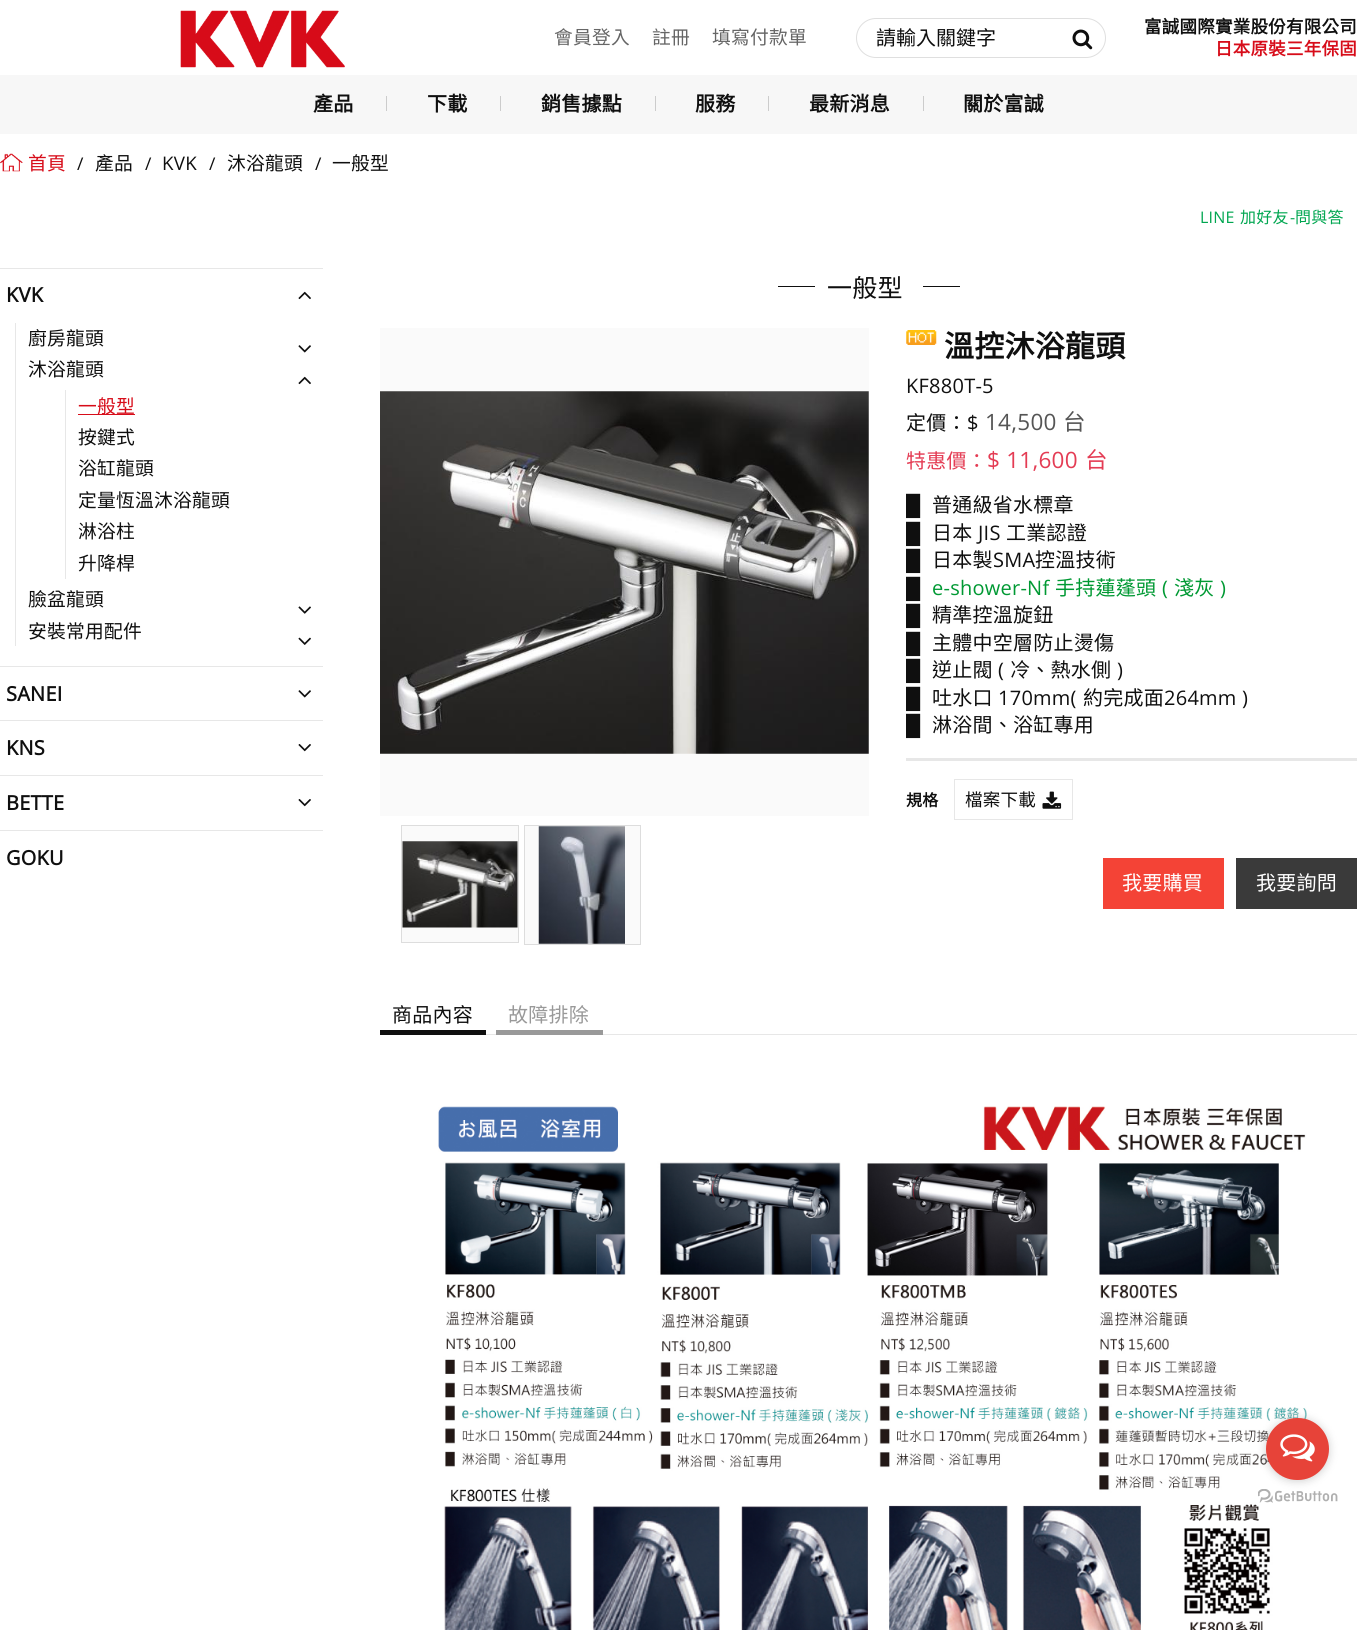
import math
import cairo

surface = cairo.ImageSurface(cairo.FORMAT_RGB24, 1357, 1630)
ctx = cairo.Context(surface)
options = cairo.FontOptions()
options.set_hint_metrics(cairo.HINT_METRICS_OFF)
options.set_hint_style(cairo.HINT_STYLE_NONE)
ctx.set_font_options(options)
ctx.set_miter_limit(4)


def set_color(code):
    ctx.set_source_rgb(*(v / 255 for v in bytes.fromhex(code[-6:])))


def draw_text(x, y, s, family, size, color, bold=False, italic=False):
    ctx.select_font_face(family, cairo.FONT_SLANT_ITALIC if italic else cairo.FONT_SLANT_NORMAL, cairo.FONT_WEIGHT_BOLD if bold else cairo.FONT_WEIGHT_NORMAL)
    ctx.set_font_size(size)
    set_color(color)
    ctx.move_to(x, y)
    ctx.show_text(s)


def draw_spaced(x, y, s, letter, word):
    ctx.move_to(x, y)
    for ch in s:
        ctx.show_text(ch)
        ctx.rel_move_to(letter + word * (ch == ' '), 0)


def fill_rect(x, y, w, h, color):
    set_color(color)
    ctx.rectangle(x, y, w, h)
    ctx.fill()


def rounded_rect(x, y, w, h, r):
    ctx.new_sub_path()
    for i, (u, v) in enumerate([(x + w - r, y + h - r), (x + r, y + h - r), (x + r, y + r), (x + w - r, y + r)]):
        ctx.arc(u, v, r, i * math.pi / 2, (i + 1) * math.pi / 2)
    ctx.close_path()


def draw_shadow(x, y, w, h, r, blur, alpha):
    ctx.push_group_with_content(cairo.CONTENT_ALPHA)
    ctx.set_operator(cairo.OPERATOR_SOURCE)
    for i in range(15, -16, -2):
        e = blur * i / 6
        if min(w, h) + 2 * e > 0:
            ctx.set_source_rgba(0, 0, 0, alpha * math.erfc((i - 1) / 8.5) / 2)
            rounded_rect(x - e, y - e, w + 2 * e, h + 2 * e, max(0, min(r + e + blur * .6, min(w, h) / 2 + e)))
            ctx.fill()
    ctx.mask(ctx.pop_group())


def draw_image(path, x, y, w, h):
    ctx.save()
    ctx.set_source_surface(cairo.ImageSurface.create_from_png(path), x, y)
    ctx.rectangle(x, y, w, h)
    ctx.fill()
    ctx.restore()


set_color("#ffffff")
ctx.paint()
draw_image("assets/img1.png", 180, 10, 165, 58)
ctx.select_font_face("Noto Sans CJK TC")
ctx.set_font_size(18.75)
set_color("#666666")
draw_spaced(554, 44, "會員登入", 0.25, 0)
draw_spaced(652, 44, "註冊", 0.25, 0)
draw_spaced(712, 44, "填寫付款單", 0.25, 0)
rounded_rect(856.5, 18.5, 249, 39, 19.5)
set_color("#dfdfdf")
ctx.set_line_width(1)
ctx.stroke()
draw_text(876, 45, "請輸入關鍵字", "Noto Sans CJK TC", 20, "#0f0f0f")
draw_image("assets/img2.png", 1072, 29, 21, 21)
ctx.select_font_face("Noto Sans CJK TC", cairo.FONT_SLANT_NORMAL, cairo.FONT_WEIGHT_BOLD)
ctx.set_font_size(17.5)
draw_spaced(1144, 33, "富誠國際實業股份有限公司", 0.25, 0)
set_color("#d70c19")
draw_spaced(1215, 55, "日本原裝三年保固", 0.25, 0)
fill_rect(0, 75, 1357, 59, "#f7f7f7")
ctx.set_font_size(20)
set_color("#0f0f0f")
draw_spaced(313, 111, "產品", 0.25, 0)
fill_rect(386, 96, 1, 15, "#cccccc")
set_color("#0f0f0f")
draw_spaced(427, 111, "下載", 0.25, 0)
fill_rect(500, 96, 1, 15, "#cccccc")
set_color("#0f0f0f")
draw_spaced(541, 111, "銷售據點", 0.25, 0)
fill_rect(655, 96, 1, 15, "#cccccc")
set_color("#0f0f0f")
draw_spaced(695, 111, "服務", 0.25, 0)
fill_rect(768, 96, 1, 15, "#cccccc")
set_color("#0f0f0f")
draw_spaced(809, 111, "最新消息", 0.25, 0)
fill_rect(923, 96, 1, 15, "#cccccc")
set_color("#0f0f0f")
draw_spaced(963, 111, "關於富誠", 0.25, 0)
draw_image("assets/img3.png", 0, 153, 23, 19)
ctx.select_font_face("Noto Sans CJK TC")
ctx.set_font_size(18.75)
set_color("#d70c19")
draw_spaced(28, 170, "首頁", 0.25, 0)
ctx.select_font_face("Open Sans")
ctx.set_font_size(17.5)
set_color("#0f0f0f")
draw_spaced(77, 170, "/", 0.25, 0)
ctx.select_font_face("Noto Sans CJK TC")
ctx.set_font_size(18.75)
draw_spaced(95, 170, "產品", 0.25, 0)
ctx.select_font_face("Open Sans")
ctx.set_font_size(17.5)
draw_spaced(145, 170, "/", 0.25, 0)
ctx.set_font_size(18.75)
draw_spaced(162, 170, "KVK", 0.25, 0)
ctx.set_font_size(17.5)
draw_spaced(209, 170, "/", 0.25, 0)
ctx.select_font_face("Noto Sans CJK TC")
ctx.set_font_size(18.75)
draw_spaced(227, 170, "沐浴龍頭", 0.25, 0)
ctx.select_font_face("Open Sans")
ctx.set_font_size(17.5)
draw_spaced(315, 170, "/", 0.25, 0)
ctx.select_font_face("Noto Sans CJK TC")
ctx.set_font_size(18.75)
draw_spaced(332, 170, "一般型", 0.25, 0)
ctx.select_font_face("Open Sans")
ctx.set_font_size(16)
set_color("#00a650")
draw_spaced(1200, 223, "LINE", 0.25, 0)
ctx.select_font_face("Noto Sans CJK TC")
draw_spaced(1240, 223, "加好友", 0.25, 0)
ctx.select_font_face("Open Sans")
draw_spaced(1290, 223, "-", 0.25, 0)
ctx.select_font_face("Noto Sans CJK TC")
draw_spaced(1295, 223, "問與答", 0.25, 0)
fill_rect(0, 268, 323, 1, "#e7e7e7")
ctx.select_font_face("Open Sans", cairo.FONT_SLANT_NORMAL, cairo.FONT_WEIGHT_BOLD)
ctx.set_font_size(20)
set_color("#0f0f0f")
draw_spaced(6, 302, "KVK", 0.25, 0)
draw_image("assets/img4.png", 298, 291, 13, 9)
fill_rect(15, 323, 1, 323, "#e7e7e7")
ctx.select_font_face("Noto Sans CJK TC")
ctx.set_font_size(18.75)
set_color("#0f0f0f")
draw_spaced(28, 345, "廚房龍頭", 0.25, 0)
draw_image("assets/img5.png", 298, 345, 13, 8)
draw_spaced(28, 376, "沐浴龍頭", 0.25, 0)
draw_image("assets/img4.png", 298, 376, 13, 9)
fill_rect(65, 390, 1, 189, "#e7e7e7")
fill_rect(78, 414, 57, 1, "#d70c19")
draw_spaced(78, 413, "一般型", 0.25, 0)
set_color("#0f0f0f")
draw_spaced(78, 444, "按鍵式", 0.25, 0)
draw_spaced(78, 475, "浴缸龍頭", 0.25, 0)
draw_spaced(78, 507, "定量恆溫沐浴龍頭", 0.25, 0)
draw_spaced(78, 538, "淋浴柱", 0.25, 0)
draw_spaced(78, 570, "升降桿", 0.25, 0)
draw_spaced(28, 606, "臉盆龍頭", 0.25, 0)
draw_image("assets/img6.png", 298, 606, 13, 8)
draw_spaced(28, 638, "安裝常用配件", 0.25, 0)
draw_image("assets/img7.png", 298, 637, 13, 8)
fill_rect(0, 666, 323, 1, "#e7e7e7")
ctx.select_font_face("Open Sans", cairo.FONT_SLANT_NORMAL, cairo.FONT_WEIGHT_BOLD)
ctx.set_font_size(20)
set_color("#0f0f0f")
draw_spaced(6, 701, "SANEI", 0.25, 0)
draw_image("assets/img5.png", 298, 690, 13, 8)
fill_rect(0, 720, 323, 1, "#e7e7e7")
set_color("#0f0f0f")
draw_spaced(6, 755, "KNS", 0.25, 0)
draw_image("assets/img8.png", 298, 744, 13, 8)
fill_rect(0, 775, 323, 1, "#e7e7e7")
set_color("#0f0f0f")
draw_spaced(6, 810, "BETTE", 0.25, 0)
draw_image("assets/img8.png", 298, 799, 13, 8)
fill_rect(0, 830, 323, 1, "#e7e7e7")
set_color("#0f0f0f")
draw_spaced(6, 865, "GOKU", 0.25, 0)
fill_rect(778, 286, 37, 1, "#0f0f0f")
ctx.select_font_face("Noto Sans CJK TC")
ctx.set_font_size(25)
draw_spaced(827, 297, "一般型", 0.25, 0)
fill_rect(923, 286, 37, 1, "#0f0f0f")
fill_rect(380, 328, 489, 488, "#fafafa")
draw_image("assets/img9.png", 380, 391, 489, 363)
ctx.rectangle(401.5, 825.5, 117, 117)
ctx.fill_preserve()
set_color("#dddddd")
ctx.stroke()
draw_image("assets/img10.png", 402, 841, 116, 87)
set_color("#fafafa")
ctx.rectangle(524.5, 825.5, 116, 119)
ctx.fill_preserve()
set_color("#dddddd")
ctx.stroke()
draw_image("assets/img11.png", 538, 826, 87, 118)
draw_image("assets/img12.png", 906, 330, 31, 15)
ctx.select_font_face("Noto Sans CJK TC", cairo.FONT_SLANT_NORMAL, cairo.FONT_WEIGHT_BOLD)
ctx.set_font_size(30)
set_color("#0f0f0f")
draw_spaced(944, 357, "溫控沐浴龍頭", 0.25, 0)
ctx.select_font_face("Open Sans")
ctx.set_font_size(20)
draw_spaced(906, 393, "KF880T-5", 0.25, 0)
ctx.select_font_face("Noto Sans CJK TC")
draw_spaced(906, 430, "定價：", 0.25, 0)
ctx.select_font_face("Open Sans")
draw_spaced(967, 430, "$", 0.25, 0)
ctx.set_font_size(22.5)
set_color("#555555")
draw_spaced(985, 430, "14,500", 0.25, 0)
ctx.select_font_face("Noto Sans CJK TC")
draw_spaced(1063, 430, "台", 0.25, 0)
ctx.set_font_size(20)
set_color("#e43c54")
draw_spaced(906, 468, "特惠價：", 0.25, 0)
ctx.select_font_face("Open Sans")
ctx.set_font_size(22.5)
draw_spaced(987, 468, "$ 11,600", 0.25, 0)
ctx.select_font_face("Noto Sans CJK TC")
draw_spaced(1085, 468, "台", 0.25, 0)
fill_rect(906, 758, 451, 3, "#e7e7e7")
ctx.select_font_face("Liberation Sans")
ctx.set_font_size(20)
set_color("#0f0f0f")
draw_spaced(906, 512, "█", 0.25, 0)
ctx.select_font_face("Noto Sans CJK TC")
draw_spaced(932, 512, "普通級省水標章", 0.25, 0)
ctx.select_font_face("Liberation Sans")
draw_spaced(906, 540, "█", 0.25, 0)
ctx.select_font_face("Noto Sans CJK TC")
draw_spaced(932, 540, "日本", 0.25, 0)
ctx.select_font_face("Open Sans")
draw_spaced(978, 540, "JIS", 0.25, 0)
ctx.select_font_face("Noto Sans CJK TC")
draw_spaced(1006, 540, "工業認證", 0.25, 0)
ctx.select_font_face("Liberation Sans")
draw_spaced(906, 567, "█", 0.25, 0)
ctx.select_font_face("Noto Sans CJK TC")
draw_spaced(932, 567, "日本製", 0.25, 0)
ctx.select_font_face("Open Sans")
draw_spaced(993, 567, "SMA", 0.25, 0)
ctx.select_font_face("Noto Sans CJK TC")
draw_spaced(1035, 567, "控溫技術", 0.25, 0)
ctx.select_font_face("Liberation Sans")
draw_spaced(906, 595, "█", 0.25, 0)
ctx.select_font_face("Open Sans")
set_color("#009933")
draw_spaced(932, 595, "e-shower-Nf", 0.25, 0)
ctx.select_font_face("Noto Sans CJK TC")
draw_spaced(1055, 595, "手持蓮蓬頭", 0.25, 0)
ctx.select_font_face("Open Sans")
draw_spaced(1162, 595, "(", 0.25, 0)
ctx.select_font_face("Noto Sans CJK TC")
draw_spaced(1174, 595, "淺灰", 0.25, 0)
ctx.select_font_face("Open Sans")
draw_spaced(1220, 595, ")", 0.25, 0)
ctx.select_font_face("Liberation Sans")
set_color("#0f0f0f")
draw_spaced(906, 622, "█", 0.25, 0)
ctx.select_font_face("Noto Sans CJK TC")
draw_spaced(932, 622, "精準控溫旋鈕", 0.25, 0)
ctx.select_font_face("Liberation Sans")
draw_spaced(906, 650, "█", 0.25, 0)
ctx.select_font_face("Noto Sans CJK TC")
draw_spaced(932, 650, "主體中空層防止燙傷", 0.25, 0)
ctx.select_font_face("Liberation Sans")
draw_spaced(906, 677, "█", 0.25, 0)
ctx.select_font_face("Noto Sans CJK TC")
draw_spaced(932, 677, "逆止閥", 0.25, 0)
ctx.select_font_face("Open Sans")
draw_spaced(998, 677, "(", 0.25, 0)
ctx.select_font_face("Noto Sans CJK TC")
draw_spaced(1010, 677, "冷、熱水側", 0.25, 0)
ctx.select_font_face("Open Sans")
draw_spaced(1117, 677, ")", 0.25, 0)
ctx.select_font_face("Liberation Sans")
draw_spaced(906, 705, "█", 0.25, 0)
ctx.select_font_face("Noto Sans CJK TC")
draw_spaced(932, 705, "吐水口", 0.25, 0)
ctx.select_font_face("Open Sans")
draw_spaced(998, 705, "170mm(", 0.25, 0)
ctx.select_font_face("Noto Sans CJK TC")
draw_spaced(1083, 705, "約完成面", 0.25, 0)
ctx.select_font_face("Open Sans")
draw_spaced(1164, 705, "264mm )", 0.25, 0)
ctx.select_font_face("Liberation Sans")
draw_spaced(906, 732, "█", 0.25, 0)
ctx.select_font_face("Noto Sans CJK TC")
draw_spaced(932, 732, "淋浴間、浴缸專用", 0.25, 0)
ctx.select_font_face("Noto Sans CJK TC", cairo.FONT_SLANT_NORMAL, cairo.FONT_WEIGHT_BOLD)
ctx.set_font_size(16)
draw_spaced(906, 806, "規格", 0.25, 0)
ctx.rectangle(954.5, 779.5, 118, 40)
set_color("#e7e7e7")
ctx.stroke()
ctx.select_font_face("Noto Sans CJK TC")
ctx.set_font_size(17.5)
set_color("#0f0f0f")
draw_spaced(965, 806, "檔案下載", 0.25, 0)
draw_image("assets/img13.png", 1042, 791, 20, 18)
fill_rect(1103, 858, 121, 51, "#f44336")
ctx.set_font_size(20)
set_color("#ffffff")
draw_spaced(1122, 890, "我要購買", 0.25, 0)
fill_rect(1236, 858, 121, 51, "#3a3a3a")
set_color("#ffffff")
draw_spaced(1256, 890, "我要詢問", 0.25, 0)
fill_rect(486, 1034, 871, 1, "#e7e7e7")
fill_rect(380, 1030, 106, 5, "#0f0f0f")
draw_spaced(392, 1022, "商品內容", 0.25, 0)
fill_rect(496, 1030, 107, 5, "#999999")
draw_spaced(508, 1022, "故障排除", 0.25, 0)
draw_image("assets/img14.png", 438, 1106, 869, 524)
draw_image("assets/img16.png", 1258, 1489, 80, 14)
set_color("#888888")
draw_shadow(1266, 1419, 63, 62, 31, 4.5, 0.4)
set_color("#e74339")
rounded_rect(1266, 1418, 63, 62, 31)
ctx.fill()
draw_image("assets/img15.png", 1280, 1434, 35, 28)
surface.write_to_png("output.png")
